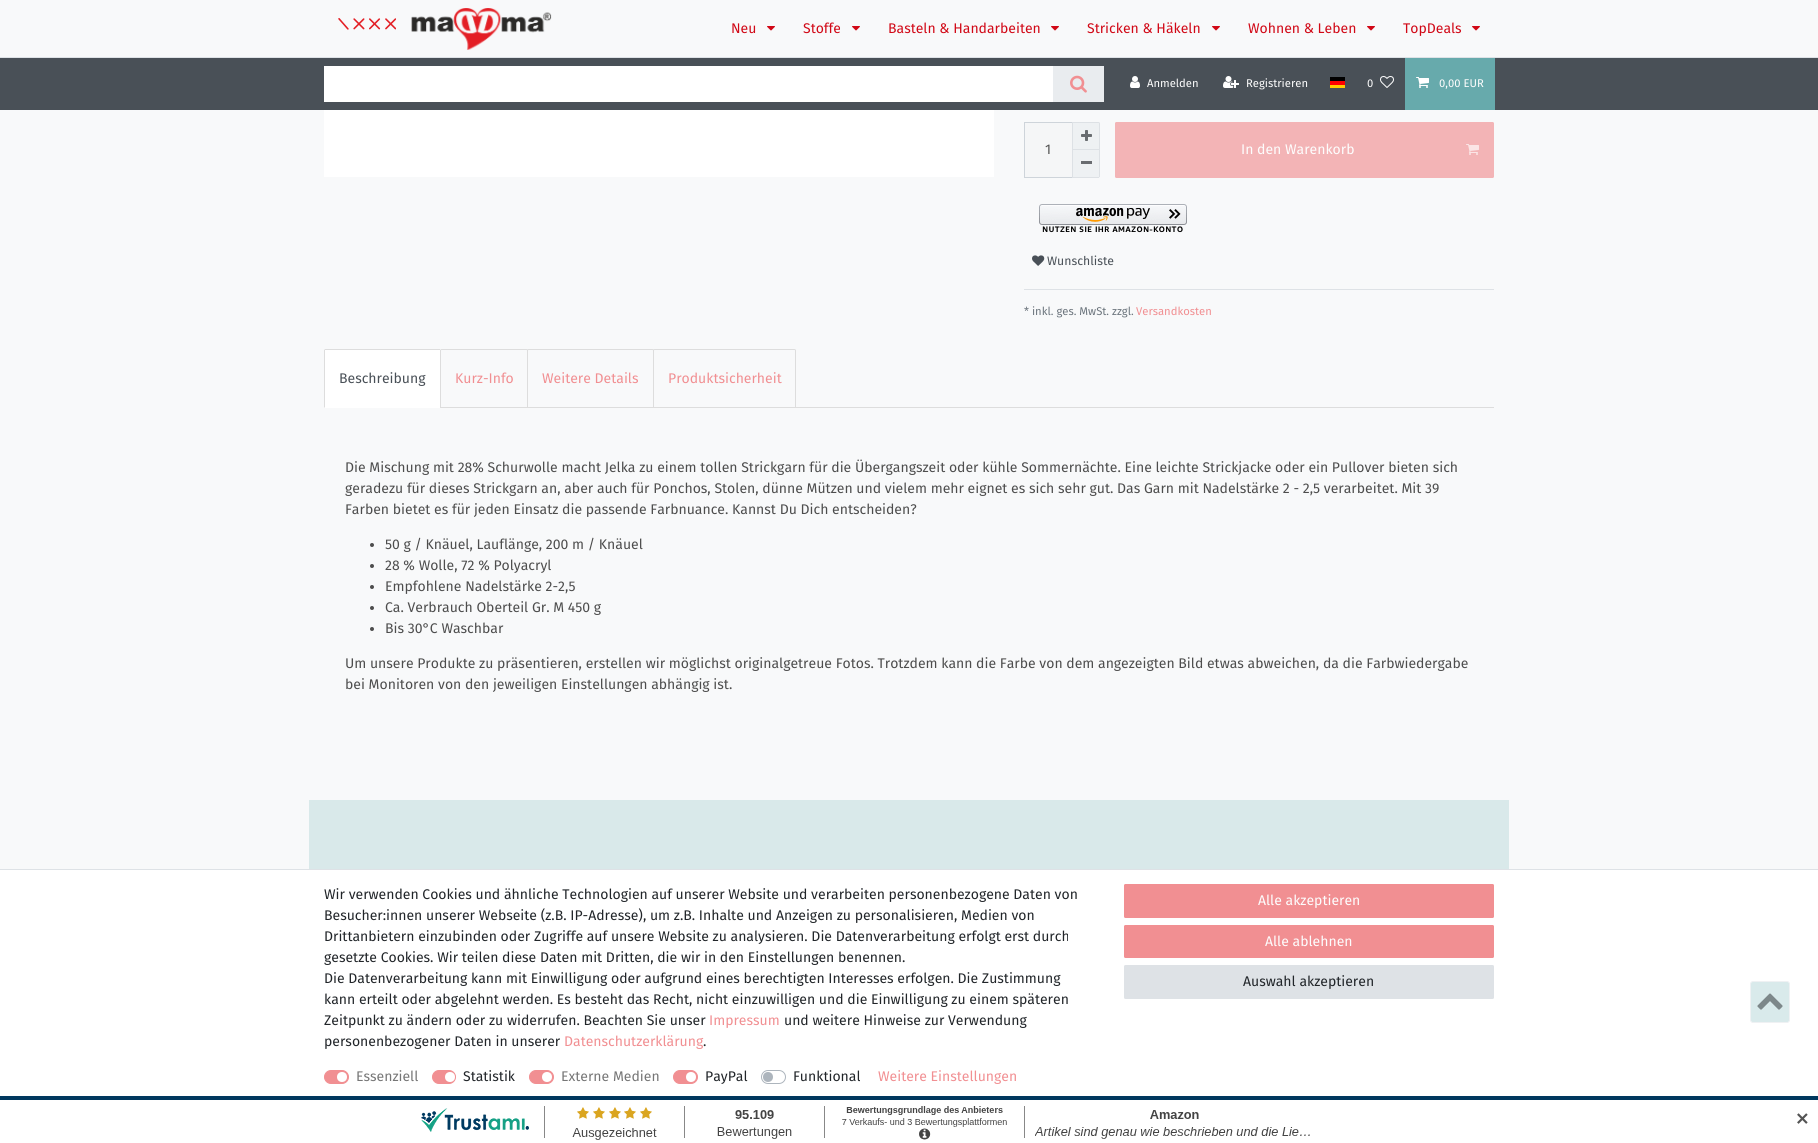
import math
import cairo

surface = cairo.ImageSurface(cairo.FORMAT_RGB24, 1818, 1143)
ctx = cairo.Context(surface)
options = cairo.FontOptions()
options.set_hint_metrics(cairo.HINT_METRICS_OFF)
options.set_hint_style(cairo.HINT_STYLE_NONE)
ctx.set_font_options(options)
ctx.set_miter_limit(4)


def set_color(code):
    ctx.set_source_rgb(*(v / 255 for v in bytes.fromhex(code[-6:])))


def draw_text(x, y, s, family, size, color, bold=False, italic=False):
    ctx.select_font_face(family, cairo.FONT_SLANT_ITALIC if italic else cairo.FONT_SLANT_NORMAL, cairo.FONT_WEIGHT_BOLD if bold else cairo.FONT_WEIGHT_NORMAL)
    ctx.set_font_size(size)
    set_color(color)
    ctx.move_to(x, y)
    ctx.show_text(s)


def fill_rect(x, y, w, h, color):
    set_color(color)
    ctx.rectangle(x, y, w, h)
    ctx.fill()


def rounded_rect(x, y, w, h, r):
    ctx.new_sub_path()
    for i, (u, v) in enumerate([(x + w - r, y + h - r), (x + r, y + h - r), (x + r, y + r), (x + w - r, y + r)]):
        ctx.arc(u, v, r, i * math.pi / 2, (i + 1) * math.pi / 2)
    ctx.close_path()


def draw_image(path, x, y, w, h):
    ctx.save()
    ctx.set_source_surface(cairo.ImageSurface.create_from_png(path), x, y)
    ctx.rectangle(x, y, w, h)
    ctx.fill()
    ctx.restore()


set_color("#f8f9fa")
ctx.paint()
fill_rect(0, 57, 1818, 1, "#dee2e6")
draw_image("assets/img1.png", 338, 18, 58, 12)
draw_image("assets/img2.png", 411, 8, 141, 42)
draw_text(731, 33, "Neu", "Fira Sans", 14, "#d10816")
draw_image("assets/img3.png", 767, 26, 8, 5)
draw_text(803, 33, "Stoffe", "Fira Sans", 14, "#d10816")
draw_image("assets/img3.png", 852, 26, 8, 5)
draw_text(888, 33, "Basteln & Handarbeiten", "Fira Sans", 14, "#d10816")
draw_image("assets/img3.png", 1051, 26, 8, 5)
draw_text(1087, 33, "Stricken & Häkeln", "Fira Sans", 14, "#d10816")
draw_image("assets/img3.png", 1212, 26, 8, 5)
draw_text(1248, 33, "Wohnen & Leben", "Fira Sans", 14, "#d10816")
draw_image("assets/img3.png", 1367, 26, 8, 5)
draw_text(1403, 33, "TopDeals", "Fira Sans", 14, "#d10816")
draw_image("assets/img3.png", 1472, 26, 8, 5)
fill_rect(0, 58, 1818, 52, "#495057")
fill_rect(324, 66, 729, 36, "#ffffff")
fill_rect(1053, 66, 51, 36, "#e9ecef")
draw_image("assets/img4.png", 1070, 75, 17, 18)
draw_image("assets/img5.png", 1130, 76, 10, 12)
draw_text(1147, 87, "Anmelden", "Fira Sans", 11.25, "#fdfdfd")
draw_image("assets/img6.png", 1223, 76, 16, 12)
draw_text(1246, 87, "Registrieren", "Fira Sans", 11.25, "#fdfdfd")
fill_rect(1330, 85, 15, 3, "#ffcc00")
fill_rect(1330, 77, 15, 4, "#000000")
fill_rect(1330, 81, 15, 4, "#ff0000")
draw_text(1367, 87, "0", "Fira Sans", 11.25, "#fdfdfd")
draw_image("assets/img7.png", 1380, 76, 14, 12)
fill_rect(1405, 58, 90, 52, "#67aaac")
draw_image("assets/img8.png", 1416, 77, 13, 11)
draw_text(1439, 87, "0,00 EUR", "Fira Sans", 11.25, "#fdfdfd")
fill_rect(324, 110, 670, 67, "#ffffff")
fill_rect(1025, 123, 47, 54, "#f5f6f7")
fill_rect(1024, 122, 48, 1, "#ced4da")
fill_rect(1024, 177, 48, 1, "#ced4da")
fill_rect(1024, 122, 1, 56, "#ced4da")
draw_text(1045, 154, "1", "Fira Sans", 14, "#545454")
set_color("#eef1f3")
ctx.new_path()
ctx.move_to(1072.5, 122.5)
ctx.line_to(1098.5, 122.5)
ctx.curve_to(1099, 122.5, 1099.5, 123, 1099.5, 123.5)
ctx.line_to(1099.5, 149.5)
ctx.line_to(1072.5, 149.5)
ctx.close_path()
ctx.fill_preserve()
set_color("#dde1e5")
ctx.set_line_width(1)
ctx.stroke()
draw_image("assets/img9.png", 1081, 130, 11, 11)
set_color("#eef1f3")
ctx.new_path()
ctx.move_to(1072, 150)
ctx.line_to(1100, 150)
ctx.line_to(1100, 176.5)
ctx.curve_to(1100, 177.5, 1099.5, 178, 1098.5, 178)
ctx.line_to(1072, 178)
ctx.close_path()
ctx.fill()
fill_rect(1099, 150, 1, 27, "#dde1e5")
fill_rect(1072, 177, 27, 1, "#dde1e5")
fill_rect(1072, 150, 1, 28, "#dde1e5")
fill_rect(1081, 161, 11, 3, "#696c70")
set_color("#f3b4b6")
rounded_rect(1115.5, 122.5, 378, 55, 1)
ctx.fill_preserve()
ctx.stroke()
draw_text(1241, 154, "In den Warenkorb", "Fira Sans", 14, "#fdfdfd")
draw_image("assets/img10.png", 1466, 144, 13, 11)
draw_image("assets/img11.png", 1039, 204, 148, 29)
draw_image("assets/img12.png", 1032, 255, 13, 11)
draw_text(1047, 265, "Wunschliste", "Fira Sans", 12.25, "#495057")
fill_rect(1024, 289, 470, 1, "#dee2e6")
draw_text(1024, 315, "* inkl. ges. MwSt. zzgl.", "Fira Sans", 11.25, "#6c757d")
draw_text(1136, 315, "Versandkosten", "Fira Sans", 11.25, "#f18f92")
fill_rect(796, 407, 698, 1, "#dddddd")
set_color("#ffffff")
ctx.new_path()
ctx.move_to(325.5, 349)
ctx.line_to(439.5, 349)
ctx.curve_to(440.5, 349, 441, 349.5, 441, 350.5)
ctx.line_to(441, 408)
ctx.line_to(324, 408)
ctx.line_to(324, 350.5)
ctx.curve_to(324, 349.5, 324.5, 349, 325.5, 349)
ctx.close_path()
ctx.fill()
set_color("#dddddd")
ctx.new_path()
ctx.move_to(325, 349)
ctx.line_to(324, 350)
ctx.line_to(325, 350)
ctx.line_to(440, 350)
ctx.line_to(440, 349)
ctx.close_path()
ctx.fill()
ctx.new_path()
ctx.move_to(325, 350)
ctx.line_to(324, 350)
ctx.line_to(324, 408)
ctx.line_to(325, 407)
ctx.close_path()
ctx.fill()
draw_text(339, 383, "Beschreibung", "Fira Sans", 14, "#495057")
ctx.new_path()
ctx.move_to(441.5, 349.5)
ctx.line_to(526.5, 349.5)
ctx.curve_to(527, 349.5, 527.5, 350, 527.5, 350.5)
ctx.line_to(527.5, 407.5)
ctx.line_to(440.5, 407.5)
ctx.line_to(440.5, 350.5)
ctx.curve_to(440.5, 350, 441, 349.5, 441.5, 349.5)
ctx.close_path()
set_color("#dddddd")
ctx.stroke()
draw_text(455, 383, "Kurz-Info", "Fira Sans", 14, "#f18f92")
ctx.new_path()
ctx.move_to(528.5, 349.5)
ctx.line_to(652.5, 349.5)
ctx.curve_to(653, 349.5, 653.5, 350, 653.5, 350.5)
ctx.line_to(653.5, 407.5)
ctx.line_to(527.5, 407.5)
ctx.line_to(527.5, 350.5)
ctx.curve_to(527.5, 350, 528, 349.5, 528.5, 349.5)
ctx.close_path()
set_color("#dddddd")
ctx.stroke()
draw_text(542, 383, "Weitere Details", "Fira Sans", 14, "#f18f92")
ctx.new_path()
ctx.move_to(654.5, 349.5)
ctx.line_to(794.5, 349.5)
ctx.curve_to(795, 349.5, 795.5, 350, 795.5, 350.5)
ctx.line_to(795.5, 407.5)
ctx.line_to(653.5, 407.5)
ctx.line_to(653.5, 350.5)
ctx.curve_to(653.5, 350, 654, 349.5, 654.5, 349.5)
ctx.close_path()
set_color("#dddddd")
ctx.stroke()
draw_text(668, 383, "Produktsicherheit", "Fira Sans", 14, "#f18f92")
draw_text(345, 472, "Die Mischung mit 28% Schurwolle macht Jelka zu einem tollen Strickgarn für die Übergangszeit oder kühle Sommernächte. Eine leichte Strickjacke oder ein Pullover bieten sich", "Fira Sans", 14, "#4d4d4d")
draw_text(345, 493, "geradezu für dieses Strickgarn an, aber auch für Ponchos, Stolen, dünne Mützen und vielem mehr eignet es sich sehr gut. Das Garn mit Nadelstärke 2 - 2,5 verarbeitet. Mit 39", "Fira Sans", 14, "#4d4d4d")
draw_text(345, 514, "Farben bietet es für jeden Einsatz die passende Farbnuance. Kannst Du Dich entscheiden?", "Fira Sans", 14, "#4d4d4d")
ctx.new_path()
ctx.arc(372, 545, 2, 0, 2 * math.pi)
ctx.fill()
draw_text(385, 549, "50 g / Knäuel, Lauflänge, 200 m / Knäuel", "Fira Sans", 14, "#4d4d4d")
ctx.new_path()
ctx.arc(372, 566, 2, 0, 2 * math.pi)
ctx.fill()
draw_text(385, 570, "28 % Wolle, 72 % Polyacryl", "Fira Sans", 14, "#4d4d4d")
ctx.new_path()
ctx.arc(372, 587, 2, 0, 2 * math.pi)
ctx.fill()
draw_text(385, 591, "Empfohlene Nadelstärke 2-2,5", "Fira Sans", 14, "#4d4d4d")
ctx.new_path()
ctx.arc(372, 608, 2, 0, 2 * math.pi)
ctx.fill()
draw_text(385, 612, "Ca. Verbrauch Oberteil Gr. M 450 g", "Fira Sans", 14, "#4d4d4d")
ctx.new_path()
ctx.arc(372, 629, 2, 0, 2 * math.pi)
ctx.fill()
draw_text(385, 633, "Bis 30°C Waschbar", "Fira Sans", 14, "#4d4d4d")
draw_text(345, 668, "Um unsere Produkte zu präsentieren, erstellen wir möglichst originalgetreue Fotos. Trotzdem kann die Farbe von dem angezeigten Bild etwas abweichen, da die Farbwiedergabe", "Fira Sans", 14, "#4d4d4d")
draw_text(345, 689, "bei Monitoren von den jeweiligen Einstellungen abhängig ist.", "Fira Sans", 14, "#4d4d4d")
fill_rect(309, 800, 1200, 69, "#d9e9ea")
fill_rect(0, 870, 1818, 273, "#ffffff")
fill_rect(0, 869, 1818, 1, "#dee2e6")
draw_text(324, 899, "Wir verwenden Cookies und ähnliche Technologien auf unserer Website und verarbeiten personenbezogene Daten von", "Fira Sans", 14, "#212529")
draw_text(324, 920, "Besucher:innen unserer Webseite (z.B. IP-Adresse), um z.B. Inhalte und Anzeigen zu personalisieren, Medien von", "Fira Sans", 14, "#212529")
draw_text(324, 941, "Drittanbietern einzubinden oder Zugriffe auf unsere Website zu analysieren. Die Datenverarbeitung erfolgt erst durch", "Fira Sans", 14, "#212529")
draw_text(324, 962, "gesetzte Cookies. Wir teilen diese Daten mit Dritten, die wir in den Einstellungen benennen.", "Fira Sans", 14, "#212529")
draw_text(324, 983, "Die Datenverarbeitung kann mit Einwilligung oder aufgrund eines berechtigten Interesses erfolgen. Die Zustimmung", "Fira Sans", 14, "#212529")
draw_text(324, 1004, "kann erteilt oder abgelehnt werden. Es besteht das Recht, nicht einzuwilligen und die Einwilligung zu einem späteren", "Fira Sans", 14, "#212529")
draw_text(324, 1025, "Zeitpunkt zu ändern oder zu widerrufen. Beachten Sie unser", "Fira Sans", 14, "#212529")
draw_text(709, 1025, "Impressum", "Fira Sans", 14, "#f18f92")
draw_text(784, 1025, "und weitere Hinweise zur Verwendung", "Fira Sans", 14, "#212529")
draw_text(324, 1046, "personenbezogener Daten in unserer", "Fira Sans", 14, "#212529")
draw_text(564, 1046, "Datenschutzerklärung", "Fira Sans", 14, "#f18f92")
draw_text(703, 1046, ".", "Fira Sans", 14, "#212529")
set_color("#f18f92")
rounded_rect(324.5, 1070.5, 24, 13, 6.5)
ctx.fill_preserve()
ctx.stroke()
draw_text(356, 1081, "Essenziell", "Fira Sans", 14, "#767676")
set_color("#ffffff")
ctx.new_path()
ctx.arc(342, 1077, 5, 0, 2 * math.pi)
ctx.fill()
set_color("#f18f92")
rounded_rect(432.5, 1070.5, 23, 13, 6.5)
ctx.fill_preserve()
ctx.stroke()
draw_text(463, 1081, "Statistik", "Fira Sans", 14, "#212529")
set_color("#ffffff")
ctx.new_path()
ctx.arc(450, 1077, 5, 0, 2 * math.pi)
ctx.fill()
set_color("#f18f92")
rounded_rect(529.5, 1070.5, 24, 13, 6.5)
ctx.fill_preserve()
ctx.stroke()
draw_text(561, 1081, "Externe Medien", "Fira Sans", 14, "#767676")
set_color("#ffffff")
ctx.new_path()
ctx.arc(547, 1077, 5, 0, 2 * math.pi)
ctx.fill()
set_color("#f18f92")
rounded_rect(673.5, 1070.5, 24, 13, 6.5)
ctx.fill_preserve()
ctx.stroke()
draw_text(705, 1081, "PayPal", "Fira Sans", 14, "#212529")
set_color("#ffffff")
ctx.new_path()
ctx.arc(691, 1077, 5, 0, 2 * math.pi)
ctx.fill()
rounded_rect(761.5, 1070.5, 24, 13, 6.5)
set_color("#adb5bd")
ctx.stroke()
draw_text(793, 1081, "Funktional", "Fira Sans", 14, "#212529")
set_color("#adb5bd")
ctx.new_path()
ctx.arc(768, 1077, 5, 0, 2 * math.pi)
ctx.fill()
draw_text(878, 1081, "Weitere Einstellungen", "Fira Sans", 14, "#f18f92")
rounded_rect(1124.5, 884.5, 369, 33, 1)
ctx.fill_preserve()
ctx.stroke()
draw_text(1258, 905, "Alle akzeptieren", "Fira Sans", 14, "#fdfdfd")
set_color("#f18f92")
rounded_rect(1124.5, 925.5, 369, 32, 1)
ctx.fill_preserve()
ctx.stroke()
draw_text(1265, 946, "Alle ablehnen", "Fira Sans", 14, "#fdfdfd")
set_color("#dee2e6")
rounded_rect(1124.5, 965.5, 369, 33, 1)
ctx.fill_preserve()
ctx.stroke()
draw_text(1243, 986, "Auswahl akzeptieren", "Fira Sans", 14, "#212529")
set_color("#d9eaeb")
rounded_rect(1750.5, 981.5, 39, 41, 2.5)
ctx.fill_preserve()
set_color("#eff1f3")
ctx.stroke()
draw_image("assets/img13.png", 1757, 993, 26, 17)
draw_image("assets/img14.png", 0, 1096, 1818, 44)
draw_text(1795, 1125, "✕", "DejaVu Sans", 17, "#545454", bold=True)
surface.write_to_png("output.png")
